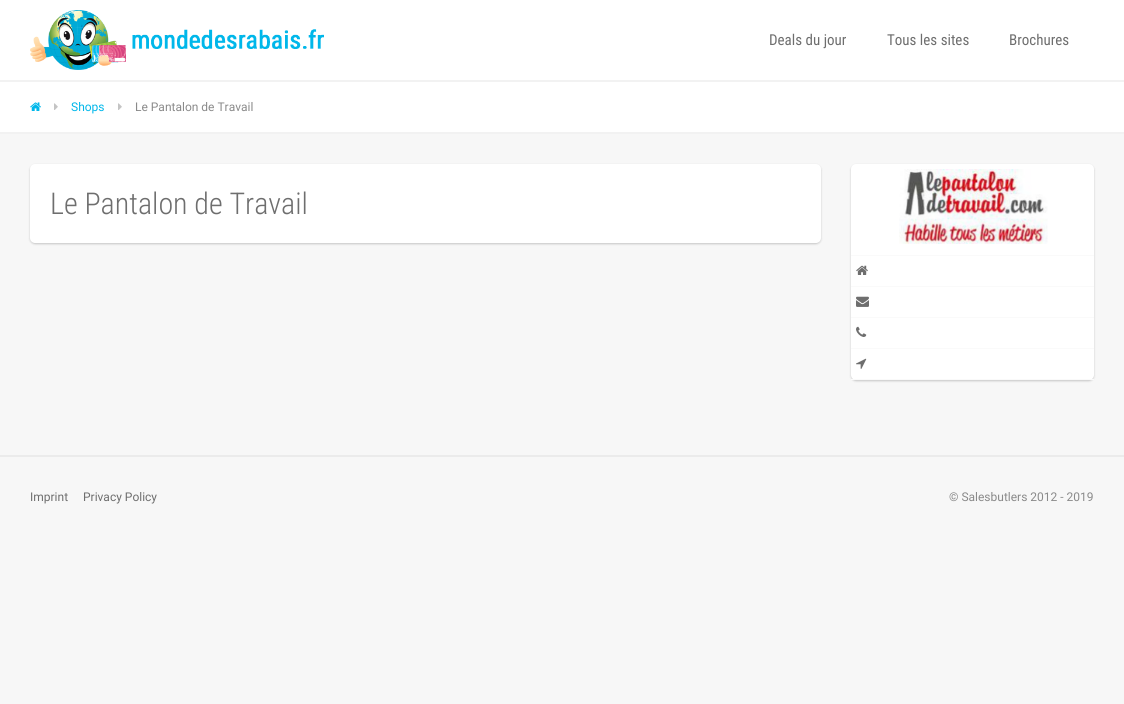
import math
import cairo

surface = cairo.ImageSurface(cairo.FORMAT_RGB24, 1124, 704)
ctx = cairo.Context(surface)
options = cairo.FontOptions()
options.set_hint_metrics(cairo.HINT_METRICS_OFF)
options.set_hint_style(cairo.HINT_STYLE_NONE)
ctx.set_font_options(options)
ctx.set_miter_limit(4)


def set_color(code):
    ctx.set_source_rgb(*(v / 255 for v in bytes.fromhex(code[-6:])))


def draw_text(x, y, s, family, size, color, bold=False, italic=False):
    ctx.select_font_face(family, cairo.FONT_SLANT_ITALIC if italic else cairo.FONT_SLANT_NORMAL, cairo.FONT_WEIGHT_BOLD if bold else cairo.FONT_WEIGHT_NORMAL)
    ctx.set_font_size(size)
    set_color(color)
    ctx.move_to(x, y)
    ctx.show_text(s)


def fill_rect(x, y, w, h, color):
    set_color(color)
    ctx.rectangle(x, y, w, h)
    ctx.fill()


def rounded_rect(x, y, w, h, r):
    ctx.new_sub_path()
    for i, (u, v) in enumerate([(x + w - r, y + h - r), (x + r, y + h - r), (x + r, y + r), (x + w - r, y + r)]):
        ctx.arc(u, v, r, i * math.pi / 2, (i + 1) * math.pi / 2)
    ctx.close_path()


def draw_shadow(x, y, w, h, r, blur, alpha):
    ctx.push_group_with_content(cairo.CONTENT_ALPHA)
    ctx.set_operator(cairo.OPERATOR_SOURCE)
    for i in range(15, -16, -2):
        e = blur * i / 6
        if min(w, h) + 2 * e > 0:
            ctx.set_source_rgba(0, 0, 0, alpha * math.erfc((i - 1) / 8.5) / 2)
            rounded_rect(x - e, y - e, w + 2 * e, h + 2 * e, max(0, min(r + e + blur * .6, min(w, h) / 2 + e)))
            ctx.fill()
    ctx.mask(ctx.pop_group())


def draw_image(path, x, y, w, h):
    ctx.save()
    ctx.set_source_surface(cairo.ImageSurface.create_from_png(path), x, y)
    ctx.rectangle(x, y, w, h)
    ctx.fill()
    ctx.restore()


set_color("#f7f7f7")
ctx.paint()
fill_rect(0, 0, 1124, 80, "#ffffff")
fill_rect(0, 80, 1124, 2, "#f2f2f2")
draw_image("assets/img1.png", 30, 10, 294, 60)
draw_text(769, 45, "Deals du jour", "Roboto Condensed", 15, "#6e6e6e")
draw_text(887, 45, "Tous les sites", "Roboto Condensed", 15, "#6e6e6e")
draw_text(1009, 45, "Brochures", "Roboto Condensed", 15, "#6e6e6e")
fill_rect(0, 82, 1124, 50, "#ffffff")
fill_rect(0, 132, 1124, 2, "#f2f2f2")
draw_image("assets/img2.png", 30, 102, 11, 9)
draw_image("assets/img3.png", 54, 103, 4, 7)
draw_text(71, 111, "Shops", "Roboto", 12, "#00b7ea")
draw_image("assets/img3.png", 118, 103, 4, 7)
draw_text(135, 111, "Le Pantalon de Travail", "Roboto", 12, "#8a8a8a")
set_color("#000000")
draw_shadow(30, 165, 791, 79, 5, 1, 0.2)
set_color("#ffffff")
rounded_rect(30, 164, 791, 79, 5)
ctx.fill()
draw_text(50, 214, "Le Pantalon de Travail", "Roboto Condensed Light", 30, "#6e6e6e")
set_color("#000000")
draw_shadow(851, 165, 243, 216, 5, 1, 0.2)
set_color("#ffffff")
rounded_rect(851, 164, 243, 216, 5)
ctx.fill()
fill_rect(851, 255, 243, 1, "#fafafa")
draw_image("assets/img4.png", 899, 169, 149, 75)
fill_rect(851, 286, 243, 1, "#fafafa")
draw_image("assets/img5.png", 856, 265, 12, 10)
fill_rect(851, 317, 243, 1, "#fafafa")
draw_image("assets/img6.png", 856, 296, 13, 11)
fill_rect(851, 348, 243, 1, "#fafafa")
draw_image("assets/img7.png", 856, 326, 11, 11)
fill_rect(851, 379, 243, 1, "#fafafa")
draw_image("assets/img8.png", 856, 358, 11, 11)
fill_rect(0, 455, 1124, 2, "#ebebeb")
draw_text(30, 501, "Imprint", "Roboto", 12, "#6e6e6e")
draw_text(83, 501, "Privacy Policy", "Roboto", 12, "#6e6e6e")
draw_text(949, 501, "© Salesbutlers 2012 - 2019", "Roboto", 12, "#8a8a8a")
surface.write_to_png("output.png")
